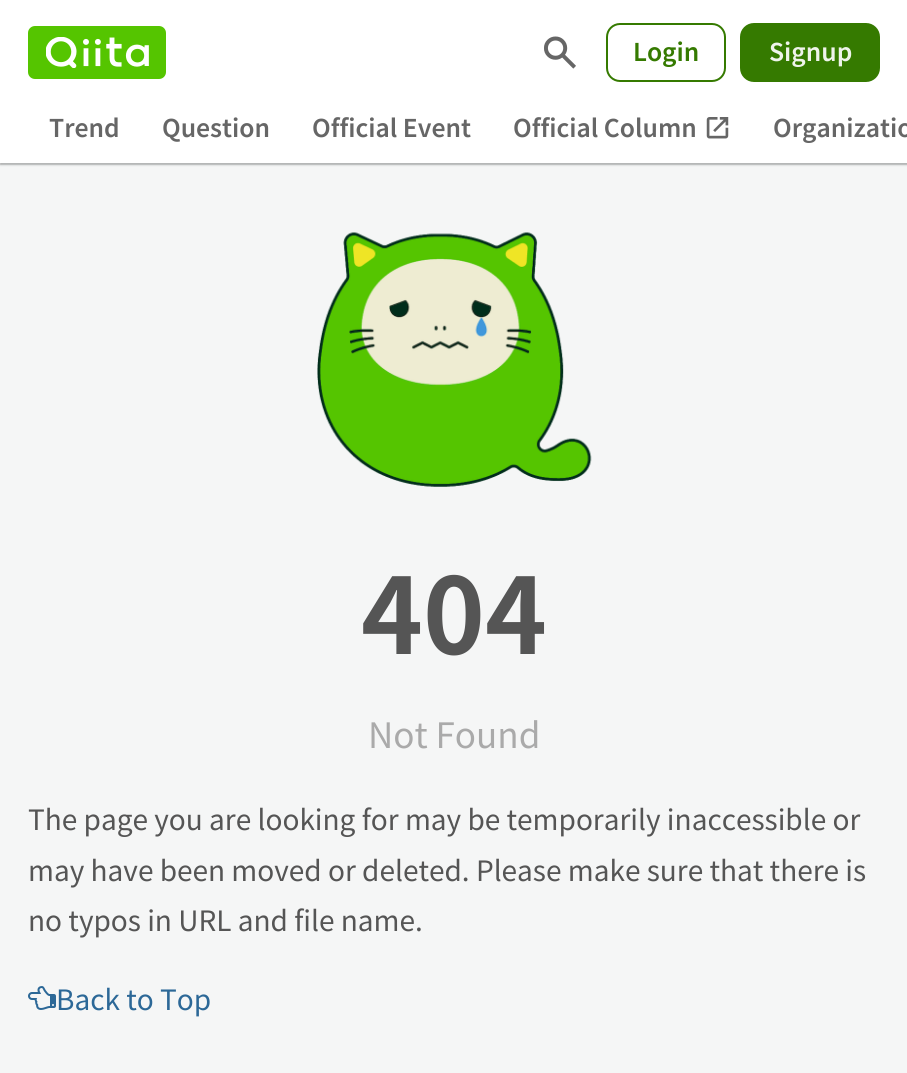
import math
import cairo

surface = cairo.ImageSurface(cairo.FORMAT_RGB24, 907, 1073)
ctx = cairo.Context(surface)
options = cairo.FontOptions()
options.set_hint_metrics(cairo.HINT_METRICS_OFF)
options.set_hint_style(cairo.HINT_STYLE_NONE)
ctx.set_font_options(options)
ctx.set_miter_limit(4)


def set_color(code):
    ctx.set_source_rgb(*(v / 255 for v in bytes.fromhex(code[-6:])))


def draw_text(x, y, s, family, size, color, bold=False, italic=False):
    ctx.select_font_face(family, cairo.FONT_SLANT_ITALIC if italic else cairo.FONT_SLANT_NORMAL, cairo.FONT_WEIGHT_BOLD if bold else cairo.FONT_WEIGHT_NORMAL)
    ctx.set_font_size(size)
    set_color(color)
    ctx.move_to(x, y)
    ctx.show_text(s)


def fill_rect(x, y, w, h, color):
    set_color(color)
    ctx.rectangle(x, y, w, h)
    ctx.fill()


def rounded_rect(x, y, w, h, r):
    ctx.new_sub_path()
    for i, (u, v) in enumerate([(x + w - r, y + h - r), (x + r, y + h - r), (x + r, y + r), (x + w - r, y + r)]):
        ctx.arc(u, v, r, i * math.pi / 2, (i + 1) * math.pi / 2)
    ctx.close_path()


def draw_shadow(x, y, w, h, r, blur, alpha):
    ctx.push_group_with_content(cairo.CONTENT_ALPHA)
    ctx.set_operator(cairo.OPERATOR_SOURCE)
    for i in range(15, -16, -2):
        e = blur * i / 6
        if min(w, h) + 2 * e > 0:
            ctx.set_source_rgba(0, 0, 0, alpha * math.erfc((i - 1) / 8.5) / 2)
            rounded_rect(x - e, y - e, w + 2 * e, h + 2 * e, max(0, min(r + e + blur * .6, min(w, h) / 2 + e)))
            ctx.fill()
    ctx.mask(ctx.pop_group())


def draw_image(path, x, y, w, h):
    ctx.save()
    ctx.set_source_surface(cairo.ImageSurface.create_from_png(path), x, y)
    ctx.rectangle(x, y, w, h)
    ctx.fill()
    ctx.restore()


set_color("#f5f6f6")
ctx.paint()
ctx.rectangle(-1, -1, 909, 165)
set_color("#e1e2e2")
ctx.stroke()
set_color("#1e2121")
draw_shadow(0, 2, 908, 163, 0, 1, 0.25)
fill_rect(0, 0, 907, 163, "#ffffff")
set_color("#55c500")
rounded_rect(28, 26, 138, 53, 7)
ctx.fill()
draw_image("assets/img1.png", 46, 37, 103, 31)
draw_image("assets/img2.png", 544, 36, 32, 33)
rounded_rect(607, 24, 118, 57, 13)
set_color("#357a00")
ctx.stroke()
draw_text(633, 61, "Login", "Noto Sans JP SemiBold", 24.5, "#357a00")
rounded_rect(740, 23, 140, 59, 14)
ctx.fill()
draw_text(769, 61, "Signup", "Noto Sans JP SemiBold", 24.5, "#eff4eb")
draw_text(49, 137, "Trend", "Noto Sans JP SemiBold", 24.5, "#666666")
draw_text(162, 137, "Question", "Noto Sans JP SemiBold", 24.5, "#666666")
draw_text(312, 137, "Official Event", "Noto Sans JP SemiBold", 24.5, "#666666")
draw_text(513, 137, "Official Column", "Noto Sans JP SemiBold", 24.5, "#666666")
draw_image("assets/img3.png", 706, 117, 23, 22)
draw_text(773, 137, "Organizatio", "Noto Sans JP SemiBold", 24.5, "#666666")
draw_image("assets/img4.png", 317, 232, 275, 255)
draw_text(361, 654, "404", "Noto Sans JP", 105, "#555555", bold=True)
draw_text(368, 748, "Not Found", "Noto Sans JP", 35, "#aaaaaa")
draw_text(28, 830, "The page you are looking for may be temporarily inaccessible or", "Noto Sans JP", 28, "#555555")
draw_text(28, 881, "may have been moved or deleted. Please make sure that there is", "Noto Sans JP", 28, "#555555")
draw_text(28, 931, "no typos in URL and file name.", "Noto Sans JP", 28, "#555555")
draw_image("assets/img5.png", 28, 986, 28, 24)
draw_text(56, 1010, "Back to Top", "Noto Sans JP", 28, "#2c6897")
surface.write_to_png("output.png")
